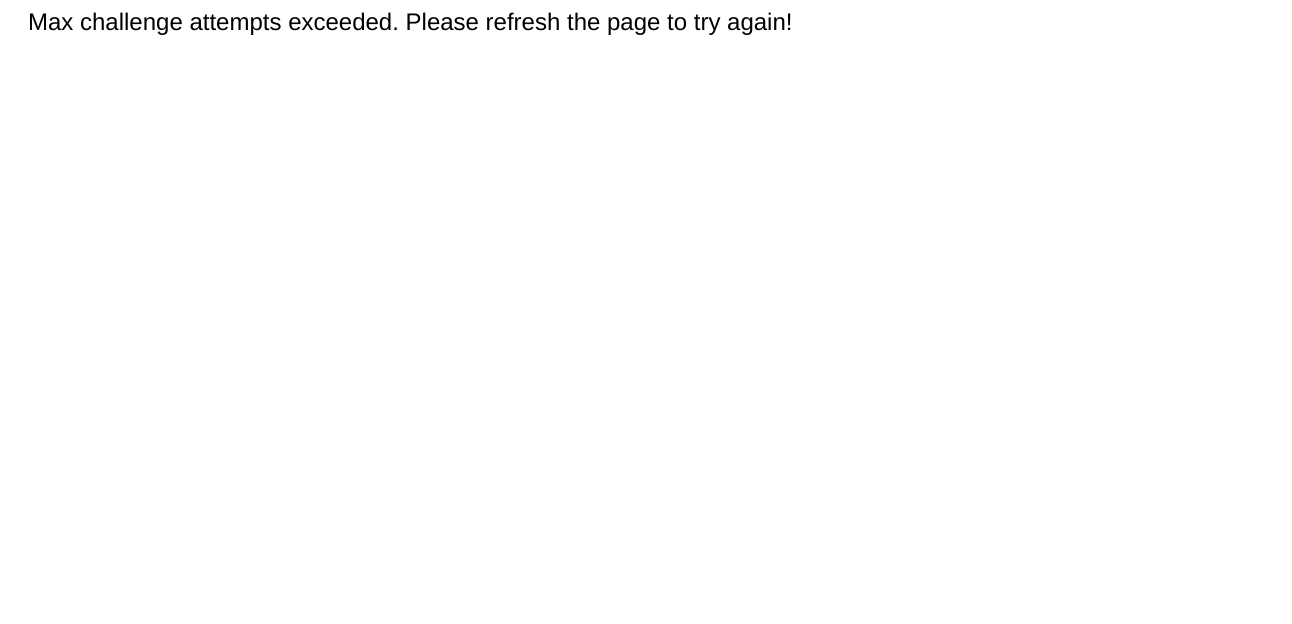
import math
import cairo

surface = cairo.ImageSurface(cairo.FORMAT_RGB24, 1292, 624)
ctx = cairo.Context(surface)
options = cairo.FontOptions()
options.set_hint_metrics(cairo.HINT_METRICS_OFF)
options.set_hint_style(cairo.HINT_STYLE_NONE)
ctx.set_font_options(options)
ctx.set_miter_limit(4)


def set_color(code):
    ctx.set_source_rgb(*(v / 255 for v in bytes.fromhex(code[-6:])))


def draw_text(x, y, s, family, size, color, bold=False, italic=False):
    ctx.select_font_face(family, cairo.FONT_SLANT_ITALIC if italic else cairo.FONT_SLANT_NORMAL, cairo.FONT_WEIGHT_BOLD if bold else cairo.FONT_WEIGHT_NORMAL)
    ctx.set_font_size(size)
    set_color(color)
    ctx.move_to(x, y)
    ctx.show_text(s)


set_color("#ffffff")
ctx.paint()
draw_text(28, 30, "Max challenge attempts exceeded. Please refresh the page to try again!", "Liberation Sans", 24, "#000000")
surface.write_to_png("output.png")
